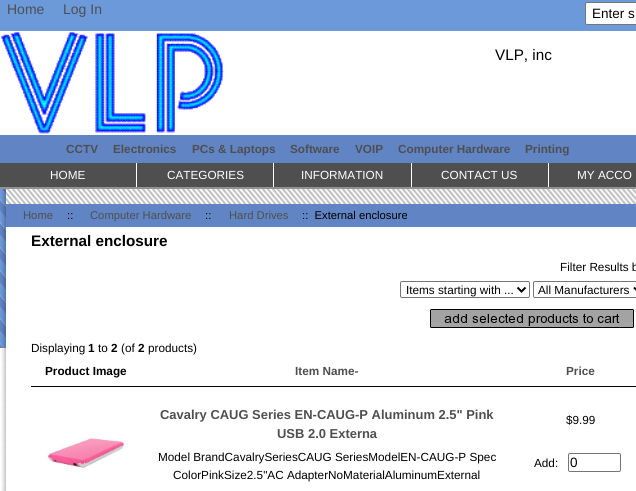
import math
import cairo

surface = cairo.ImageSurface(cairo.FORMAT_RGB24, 636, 491)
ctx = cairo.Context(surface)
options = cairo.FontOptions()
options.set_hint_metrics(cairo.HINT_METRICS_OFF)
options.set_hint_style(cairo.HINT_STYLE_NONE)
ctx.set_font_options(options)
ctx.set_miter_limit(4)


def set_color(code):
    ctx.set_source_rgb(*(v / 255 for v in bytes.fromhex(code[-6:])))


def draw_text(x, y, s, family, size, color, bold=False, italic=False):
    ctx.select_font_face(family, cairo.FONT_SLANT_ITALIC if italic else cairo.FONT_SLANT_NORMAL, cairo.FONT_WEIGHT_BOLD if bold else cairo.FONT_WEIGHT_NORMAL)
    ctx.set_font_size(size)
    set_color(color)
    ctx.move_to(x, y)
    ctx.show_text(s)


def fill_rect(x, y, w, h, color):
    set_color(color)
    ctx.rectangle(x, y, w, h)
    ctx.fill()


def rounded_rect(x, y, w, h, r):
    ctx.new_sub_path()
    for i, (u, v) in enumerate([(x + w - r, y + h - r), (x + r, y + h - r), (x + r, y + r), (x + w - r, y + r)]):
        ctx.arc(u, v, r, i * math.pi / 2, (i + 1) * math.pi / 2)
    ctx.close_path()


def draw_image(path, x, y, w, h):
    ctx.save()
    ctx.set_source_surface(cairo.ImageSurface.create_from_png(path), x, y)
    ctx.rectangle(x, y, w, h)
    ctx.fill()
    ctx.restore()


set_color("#ffffff")
ctx.paint()
draw_image("assets/img1.png", 0, 189, 6, 159)
fill_rect(0, 0, 636, 31, "#6c99d9")
draw_text(7, 14, "Home", "Liberation Sans", 14, "#4f4f4f")
draw_text(63, 14, "Log In", "Liberation Sans", 14, "#4f4f4f")
set_color("#ffffff")
rounded_rect(585.5, 2.5, 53, 22, 1.5)
ctx.fill_preserve()
set_color("#767676")
ctx.set_line_width(1)
ctx.stroke()
draw_text(592, 18, "Enter s", "Liberation Sans", 13.5, "#000000")
draw_image("assets/img2.png", 1, 32, 223, 102)
draw_text(495, 60, "VLP, inc", "Liberation Sans", 15.25, "#000000")
fill_rect(0, 135, 636, 28, "#6084c4")
draw_text(66, 153, "CCTV", "Liberation Sans", 11.75, "#4f4f4f", bold=True)
draw_text(113, 153, "Electronics", "Liberation Sans", 11.75, "#4f4f4f", bold=True)
draw_text(192, 153, "PCs & Laptops", "Liberation Sans", 11.75, "#4f4f4f", bold=True)
draw_text(290, 153, "Software", "Liberation Sans", 11.75, "#4f4f4f", bold=True)
draw_text(355, 153, "VOIP", "Liberation Sans", 11.75, "#4f4f4f", bold=True)
draw_text(398, 153, "Computer Hardware", "Liberation Sans", 11.75, "#4f4f4f", bold=True)
draw_text(525, 153, "Printing", "Liberation Sans", 11.75, "#4f4f4f", bold=True)
fill_rect(0, 187, 636, 2, "#929292")
fill_rect(0, 163, 636, 24, "#4f4f4f")
fill_rect(136, 163, 1, 24, "#ffffff")
draw_text(50, 179, "HOME", "Liberation Sans", 11.75, "#ffffff")
fill_rect(273, 163, 1, 24, "#ffffff")
draw_text(167, 179, "CATEGORIES", "Liberation Sans", 11.75, "#ffffff")
fill_rect(411, 163, 1, 24, "#ffffff")
draw_text(301, 179, "INFORMATION", "Liberation Sans", 11.75, "#ffffff")
fill_rect(548, 163, 1, 24, "#ffffff")
draw_text(441, 179, "CONTACT US", "Liberation Sans", 11.75, "#ffffff")
draw_text(577, 179, "MY ACCO", "Liberation Sans", 11.75, "#ffffff")
draw_image("assets/img3.png", 1, 189, 5, 302)
draw_image("assets/img4.png", 6, 189, 630, 15)
fill_rect(6, 204, 630, 23, "#6084c4")
draw_text(23, 219, "Home", "Liberation Sans", 11.25, "#4f4f4f")
draw_text(67, 219, "::", "Liberation Sans", 11.25, "#000000")
draw_text(90, 219, "Computer Hardware", "Liberation Sans", 11.25, "#4f4f4f")
draw_text(205, 219, "::", "Liberation Sans", 11.25, "#000000")
draw_text(229, 219, "Hard Drives", "Liberation Sans", 11.25, "#4f4f4f")
draw_text(302, 219, "::  External enclosure", "Liberation Sans", 11.25, "#000000")
draw_text(31, 246, "External enclosure", "Liberation Sans", 15.25, "#000000", bold=True)
draw_text(560, 271, "Filter Results b", "Liberation Sans", 11.75, "#000000")
rounded_rect(400.5, 281.5, 129, 16, 1.5)
set_color("#767676")
ctx.stroke()
ctx.new_path()
ctx.move_to(517.5, 287.5)
ctx.line_to(521.5, 291.5)
ctx.line_to(525.5, 287.5)
set_color("#000000")
ctx.set_line_width(2)
ctx.stroke()
draw_text(406, 294, "Items starting with ...", "Liberation Sans", 11.75, "#000000")
rounded_rect(533.5, 281.5, 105, 16, 1.5)
set_color("#767676")
ctx.set_line_width(1)
ctx.stroke()
ctx.new_path()
ctx.move_to(634, 287.5)
ctx.line_to(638, 291.5)
ctx.line_to(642, 287.5)
set_color("#000000")
ctx.set_line_width(2)
ctx.stroke()
draw_text(538, 294, "All Manufacturers", "Liberation Sans", 11.75, "#000000")
draw_image("assets/img5.png", 430, 309, 204, 19)
draw_text(31, 352, "Displaying", "Liberation Sans", 11.75, "#000000")
draw_text(88, 352, "1", "Liberation Sans", 11.75, "#000000", bold=True)
draw_text(98, 352, "to", "Liberation Sans", 11.75, "#000000")
draw_text(111, 352, "2", "Liberation Sans", 11.75, "#000000", bold=True)
draw_text(121, 352, "(of", "Liberation Sans", 11.75, "#000000")
draw_text(138, 352, "2", "Liberation Sans", 11.75, "#000000", bold=True)
draw_text(148, 352, "products)", "Liberation Sans", 11.75, "#000000")
fill_rect(31, 386, 605, 1, "#000000")
draw_text(45, 375, "Product Image", "Liberation Sans", 11.75, "#000000", bold=True)
draw_text(295, 375, "Item Name-", "Liberation Sans", 11.75, "#4f4f4f", bold=True)
draw_text(566, 375, "Price", "Liberation Sans", 11.75, "#4f4f4f", bold=True)
draw_image("assets/img6.png", 46, 437, 80, 32)
draw_text(160, 419, "Cavalry CAUG Series EN-CAUG-P Aluminum 2.5\" Pink", "Liberation Sans", 12.95, "#4f4f4f", bold=True)
draw_text(277, 438, "USB 2.0 Externa", "Liberation Sans", 12.95, "#4f4f4f", bold=True)
draw_text(158, 461, "Model BrandCavalrySeriesCAUG SeriesModelEN-CAUG-P Spec", "Liberation Sans", 11.75, "#000000")
draw_text(173, 479, "ColorPinkSize2.5\"AC AdapterNoMaterialAluminumExternal", "Liberation Sans", 11.75, "#000000")
draw_text(566, 424, "$9.99", "Liberation Sans", 11.75, "#000000")
draw_text(534, 467, "Add:", "Liberation Sans", 11.75, "#000000")
rounded_rect(568.5, 453.5, 52, 18, 1.5)
set_color("#767676")
ctx.set_line_width(1)
ctx.stroke()
draw_text(570, 467, "0", "Liberation Sans", 13.5, "#000000")
surface.write_to_png("output.png")
